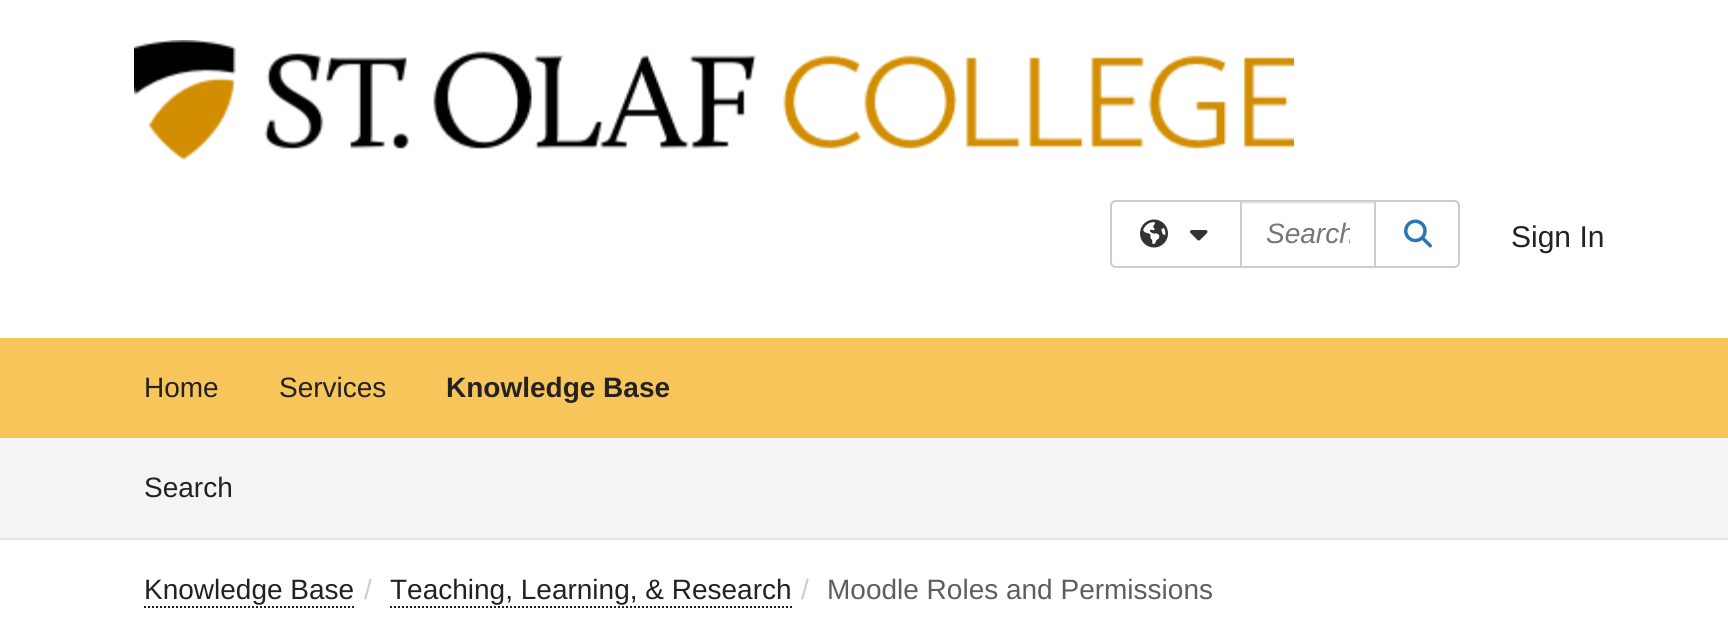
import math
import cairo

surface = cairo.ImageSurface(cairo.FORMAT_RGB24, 1728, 635)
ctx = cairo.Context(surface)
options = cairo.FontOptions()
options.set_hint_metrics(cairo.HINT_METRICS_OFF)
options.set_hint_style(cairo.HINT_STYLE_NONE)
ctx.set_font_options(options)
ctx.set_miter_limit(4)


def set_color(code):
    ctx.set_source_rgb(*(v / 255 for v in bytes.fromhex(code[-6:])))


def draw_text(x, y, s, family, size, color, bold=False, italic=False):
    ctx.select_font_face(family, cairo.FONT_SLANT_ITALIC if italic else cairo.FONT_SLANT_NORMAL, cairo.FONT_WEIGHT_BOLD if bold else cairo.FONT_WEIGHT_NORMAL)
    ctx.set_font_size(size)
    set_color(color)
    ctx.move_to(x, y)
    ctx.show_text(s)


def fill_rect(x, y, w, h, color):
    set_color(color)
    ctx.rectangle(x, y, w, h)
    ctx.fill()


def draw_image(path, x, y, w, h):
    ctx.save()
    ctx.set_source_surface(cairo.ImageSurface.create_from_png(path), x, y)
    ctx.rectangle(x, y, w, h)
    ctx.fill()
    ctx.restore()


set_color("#ffffff")
ctx.paint()
draw_image("assets/img1.png", 134, 40, 1160, 120)
ctx.new_path()
ctx.move_to(1116, 201)
ctx.line_to(1241, 201)
ctx.line_to(1241, 267)
ctx.line_to(1116, 267)
ctx.curve_to(1113, 267, 1111, 265, 1111, 262)
ctx.line_to(1111, 206)
ctx.curve_to(1111, 203, 1113, 201, 1116, 201)
ctx.close_path()
set_color("#cccccc")
ctx.stroke()
draw_image("assets/img2.png", 1140, 219, 28, 29)
draw_image("assets/img3.png", 1190, 230, 18, 11)
fill_rect(1242, 202, 132, 2, "#ececec")
ctx.rectangle(1241, 201, 134, 66)
set_color("#cccccc")
ctx.stroke()
ctx.save()
ctx.rectangle(1266, 218, 84, 32)
ctx.clip()
draw_text(1266, 243, "Search", "Liberation Sans", 28, "#767676", italic=True)
ctx.restore()
set_color("#ffffff")
ctx.new_path()
ctx.move_to(1375, 201)
ctx.line_to(1454, 201)
ctx.curve_to(1457, 201, 1459, 203, 1459, 206)
ctx.line_to(1459, 262)
ctx.curve_to(1459, 265, 1457, 267, 1454, 267)
ctx.line_to(1375, 267)
ctx.close_path()
ctx.fill_preserve()
set_color("#cccccc")
ctx.stroke()
draw_image("assets/img4.png", 1404, 219, 28, 29)
draw_text(1511, 247, "Sign In", "Liberation Sans", 30, "#242121")
fill_rect(0, 338, 1728, 100, "#f7c55a")
draw_text(144, 397, "Home", "Liberation Sans", 28, "#242121")
draw_text(279, 397, "Services", "Liberation Sans", 28, "#242121")
draw_text(446, 397, "Knowledge Base", "Liberation Sans", 28, "#242121", bold=True)
fill_rect(0, 438, 1728, 100, "#f5f5f5")
fill_rect(0, 538, 1728, 2, "#e3e3e3")
draw_text(144, 497, "Search", "Liberation Sans", 28, "#242121")
draw_text(144, 599, "Knowledge Base", "Liberation Sans", 28, "#242121")
ctx.new_path()
ctx.move_to(144, 607)
ctx.line_to(354, 607)
ctx.set_dash([2, 2])
ctx.stroke()
draw_text(364, 599, "/", "Liberation Sans", 28, "#cccccc")
draw_text(390, 599, "Teaching, Learning, & Research", "Liberation Sans", 28, "#242121")
ctx.new_path()
ctx.move_to(390, 607)
ctx.line_to(792, 607)
ctx.stroke()
draw_text(801, 599, "/", "Liberation Sans", 28, "#cccccc")
draw_text(827, 599, "Moodle Roles and Permissions", "Liberation Sans", 28, "#5e5e5e")
surface.write_to_png("output.png")
